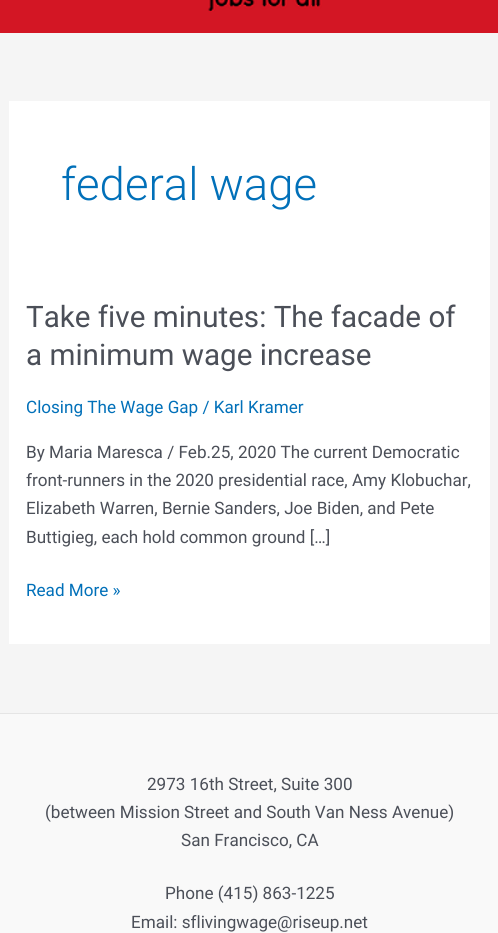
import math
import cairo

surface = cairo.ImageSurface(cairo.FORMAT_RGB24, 498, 933)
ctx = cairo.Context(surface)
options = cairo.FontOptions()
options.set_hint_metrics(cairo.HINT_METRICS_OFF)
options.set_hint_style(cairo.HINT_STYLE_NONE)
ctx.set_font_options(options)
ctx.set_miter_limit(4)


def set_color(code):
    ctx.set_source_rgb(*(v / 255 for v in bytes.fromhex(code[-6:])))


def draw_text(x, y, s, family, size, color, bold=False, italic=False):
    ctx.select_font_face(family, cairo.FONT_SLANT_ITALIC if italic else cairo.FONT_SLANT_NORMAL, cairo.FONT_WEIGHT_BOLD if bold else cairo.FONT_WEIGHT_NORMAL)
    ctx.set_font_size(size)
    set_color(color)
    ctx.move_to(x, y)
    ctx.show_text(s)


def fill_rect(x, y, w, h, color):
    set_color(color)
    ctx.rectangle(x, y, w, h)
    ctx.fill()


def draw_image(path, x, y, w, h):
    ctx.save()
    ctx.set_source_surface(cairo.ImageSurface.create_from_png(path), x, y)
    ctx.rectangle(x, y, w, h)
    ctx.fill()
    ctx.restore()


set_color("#f5f5f5")
ctx.paint()
fill_rect(0, 0, 498, 33, "#d31624")
draw_image("assets/img1.png", 208, 0, 114, 12)
fill_rect(9, 101, 481, 543, "#ffffff")
draw_text(61, 200, "federal wage", "Roboto Light", 45.5, "#0170b9")
draw_text(26, 327, "Take five minutes: The facade of", "Roboto", 29.6, "#4b4f58")
draw_text(26, 365, "a minimum wage increase", "Roboto", 29.6, "#4b4f58")
draw_text(26, 413, "Closing The Wage Gap / Karl Kramer", "Roboto", 17.1, "#0170b9")
draw_text(26, 458, "By Maria Maresca / Feb.25, 2020 The current Democratic", "Roboto", 17.1, "#4b4f58")
draw_text(26, 486, "front-runners in the 2020 presidential race, Amy Klobuchar,", "Roboto", 17.1, "#4b4f58")
draw_text(26, 514, "Elizabeth Warren, Bernie Sanders, Joe Biden, and Pete", "Roboto", 17.1, "#4b4f58")
draw_text(26, 543, "Buttigieg, each hold common ground […]", "Roboto", 17.1, "#4b4f58")
draw_text(26, 596, "Read More »", "Roboto", 17.1, "#0170b9")
fill_rect(0, 714, 498, 219, "#f9f9f9")
fill_rect(0, 713, 498, 1, "#e5e5e5")
draw_text(147, 790, "2973 16th Street, Suite 300", "Roboto", 17.1, "#4b4f58")
draw_text(45, 818, "(between Mission Street and South Van Ness Avenue)", "Roboto", 17.1, "#4b4f58")
draw_text(181, 846, "San Francisco, CA", "Roboto", 17.1, "#4b4f58")
draw_text(165, 899, "Phone (415) 863-1225", "Roboto", 17.1, "#4b4f58")
draw_text(131, 928, "Email: sflivingwage@riseup.net", "Roboto", 17.1, "#4b4f58")
surface.write_to_png("output.png")
